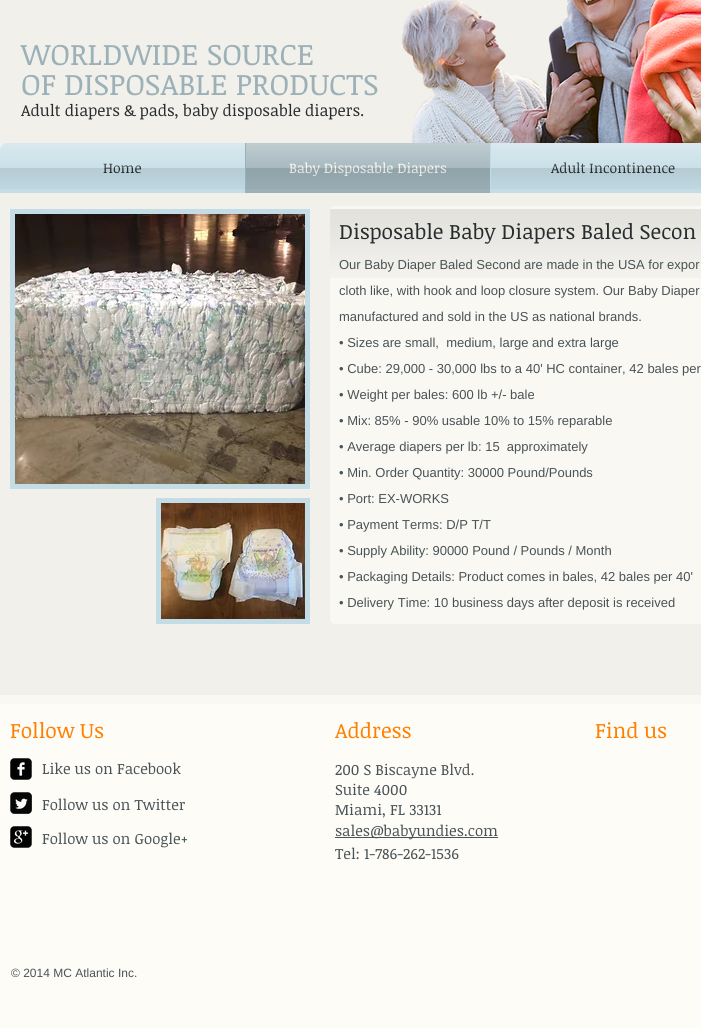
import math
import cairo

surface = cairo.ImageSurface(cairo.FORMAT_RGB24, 701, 1028)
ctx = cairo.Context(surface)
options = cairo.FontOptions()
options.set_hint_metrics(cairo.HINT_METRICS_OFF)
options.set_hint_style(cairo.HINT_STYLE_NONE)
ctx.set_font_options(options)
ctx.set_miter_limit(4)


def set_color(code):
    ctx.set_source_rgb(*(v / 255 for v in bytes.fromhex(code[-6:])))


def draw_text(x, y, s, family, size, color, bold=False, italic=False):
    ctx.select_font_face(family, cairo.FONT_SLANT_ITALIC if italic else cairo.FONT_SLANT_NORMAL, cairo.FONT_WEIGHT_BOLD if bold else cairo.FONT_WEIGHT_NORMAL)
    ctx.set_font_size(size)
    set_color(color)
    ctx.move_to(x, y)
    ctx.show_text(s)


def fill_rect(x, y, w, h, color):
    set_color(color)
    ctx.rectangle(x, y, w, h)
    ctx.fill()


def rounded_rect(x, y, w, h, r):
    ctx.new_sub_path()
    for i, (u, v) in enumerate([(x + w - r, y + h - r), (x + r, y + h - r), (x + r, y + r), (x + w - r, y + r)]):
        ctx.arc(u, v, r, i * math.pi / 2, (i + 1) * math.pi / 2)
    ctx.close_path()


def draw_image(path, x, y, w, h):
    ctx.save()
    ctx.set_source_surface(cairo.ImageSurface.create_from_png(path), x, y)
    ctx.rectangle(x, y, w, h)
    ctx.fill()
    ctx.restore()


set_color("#f1f0eb")
ctx.paint()
draw_text(21, 65, "WORLDWIDE SOURCE", "Noticia Text", 30, "#9cb0b7")
draw_text(21, 95, "OF DISPOSABLE PRODUCTS", "Noticia Text", 30, "#9cb0b7")
draw_text(21, 116, "Adult diapers & pads, baby disposable diapers.", "Noticia Text", 16, "#272c2d")
draw_image("assets/img1.png", 401, 0, 300, 143)
draw_image("assets/img2.png", 0, 143, 8, 8)
set_color("#c3dce5")
ctx.new_path()
ctx.move_to(8, 143)
ctx.line_to(245, 143)
ctx.line_to(245, 193)
ctx.line_to(0, 193)
ctx.line_to(0, 151)
ctx.curve_to(0, 146.5, 3.5, 143, 8, 143)
ctx.close_path()
ctx.fill()
draw_text(103, 173, "Home", "Noticia Text", 14, "#272c2d")
draw_image("assets/img3.png", 0, 143, 245, 46)
fill_rect(245, 143, 245, 50, "#9cb0b7")
draw_text(289, 173, "Baby Disposable Diapers", "Noticia Text", 14, "#f9f8f3")
draw_image("assets/img4.png", 246, 143, 244, 46)
fill_rect(490, 143, 211, 50, "#c3dce5")
draw_text(551, 173, "Adult Incontinence", "Noticia Text", 14, "#272c2d")
draw_image("assets/img5.png", 491, 143, 210, 46)
fill_rect(10, 209, 300, 280, "#c3dce5")
draw_image("assets/img6.png", 15, 214, 290, 270)
set_color("#f9f8f3")
rounded_rect(330, 206, 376, 418, 5)
ctx.fill()
draw_image("assets/img7.png", 330, 209, 371, 69)
draw_text(339, 239, "Disposable Baby Diapers Baled Secon", "Noticia Text", 21, "#272c2d")
draw_text(339, 269, "Our Baby Diaper Baled Second are made in the USA for expor", "Liberation Sans", 13, "#495356")
draw_text(339, 295, "cloth like, with hook and loop closure system. Our Baby Diaper", "Liberation Sans", 13, "#495356")
draw_text(339, 321, "manufactured and sold in the US as national brands.", "Liberation Sans", 13, "#495356")
draw_text(339, 347, "• Sizes are small,  medium, large and extra large", "Liberation Sans", 13, "#495356")
draw_text(339, 373, "• Cube: 29,000 - 30,000 lbs to a 40' HC container, 42 bales per", "Liberation Sans", 13, "#495356")
draw_text(339, 399, "• Weight per bales: 600 lb +/- bale", "Liberation Sans", 13, "#495356")
draw_text(339, 425, "• Mix: 85% - 90% usable 10% to 15% reparable", "Liberation Sans", 13, "#495356")
draw_text(339, 451, "• Average diapers per lb: 15  approximately", "Liberation Sans", 13, "#495356")
draw_text(339, 477, "• Min. Order Quantity: 30000 Pound/Pounds", "Liberation Sans", 13, "#495356")
draw_text(339, 503, "• Port: EX-WORKS", "Liberation Sans", 13, "#495356")
draw_text(339, 529, "• Payment Terms: D/P T/T", "Liberation Sans", 13, "#495356")
draw_text(339, 555, "• Supply Ability: 90000 Pound / Pounds / Month", "Liberation Sans", 13, "#495356")
draw_text(339, 581, "• Packaging Details: Product comes in bales, 42 bales per 40'", "Liberation Sans", 13, "#495356")
draw_text(339, 607, "• Delivery Time: 10 business days after deposit is received", "Liberation Sans", 13, "#495356")
fill_rect(156, 498, 154, 126, "#c3dce5")
draw_image("assets/img8.png", 161, 503, 144, 116)
fill_rect(0, 704, 701, 324, "#fdfcf7")
fill_rect(0, 695, 701, 9, "#f9f8f3")
draw_text(10, 738, "Follow Us", "Noticia Text", 21, "#ff7f00")
draw_text(335, 738, "Address", "Noticia Text", 21, "#ff7f00")
draw_text(595, 738, "Find us", "Noticia Text", 21, "#ff7f00")
draw_image("assets/img9.png", 10, 758, 22, 22)
draw_image("assets/img10.png", 10, 792, 22, 22)
draw_image("assets/img11.png", 10, 826, 22, 22)
draw_text(42, 774, "Like us on Facebook", "Noticia Text", 15, "#495356")
draw_text(335, 775, "200 S Biscayne Blvd.", "Noticia Text", 15, "#495356")
draw_text(335, 795, "Suite 4000", "Noticia Text", 15, "#495356")
draw_text(335, 815, "Miami, FL 33131", "Noticia Text", 15, "#495356")
fill_rect(335, 837, 163, 1, "#495356")
draw_text(335, 836, "sales@babyundies.com", "Noticia Text", 15, "#495356")
draw_text(335, 859, "Tel: 1-786-262-1536", "Noticia Text", 15, "#495356")
draw_text(42, 810, "Follow us on Twitter", "Noticia Text", 15, "#495356")
draw_text(42, 844, "Follow us on Google+", "Noticia Text", 15, "#495356")
draw_text(11, 977, "© 2014 MC Atlantic Inc.", "Liberation Sans", 12, "#495356")
surface.write_to_png("output.png")
